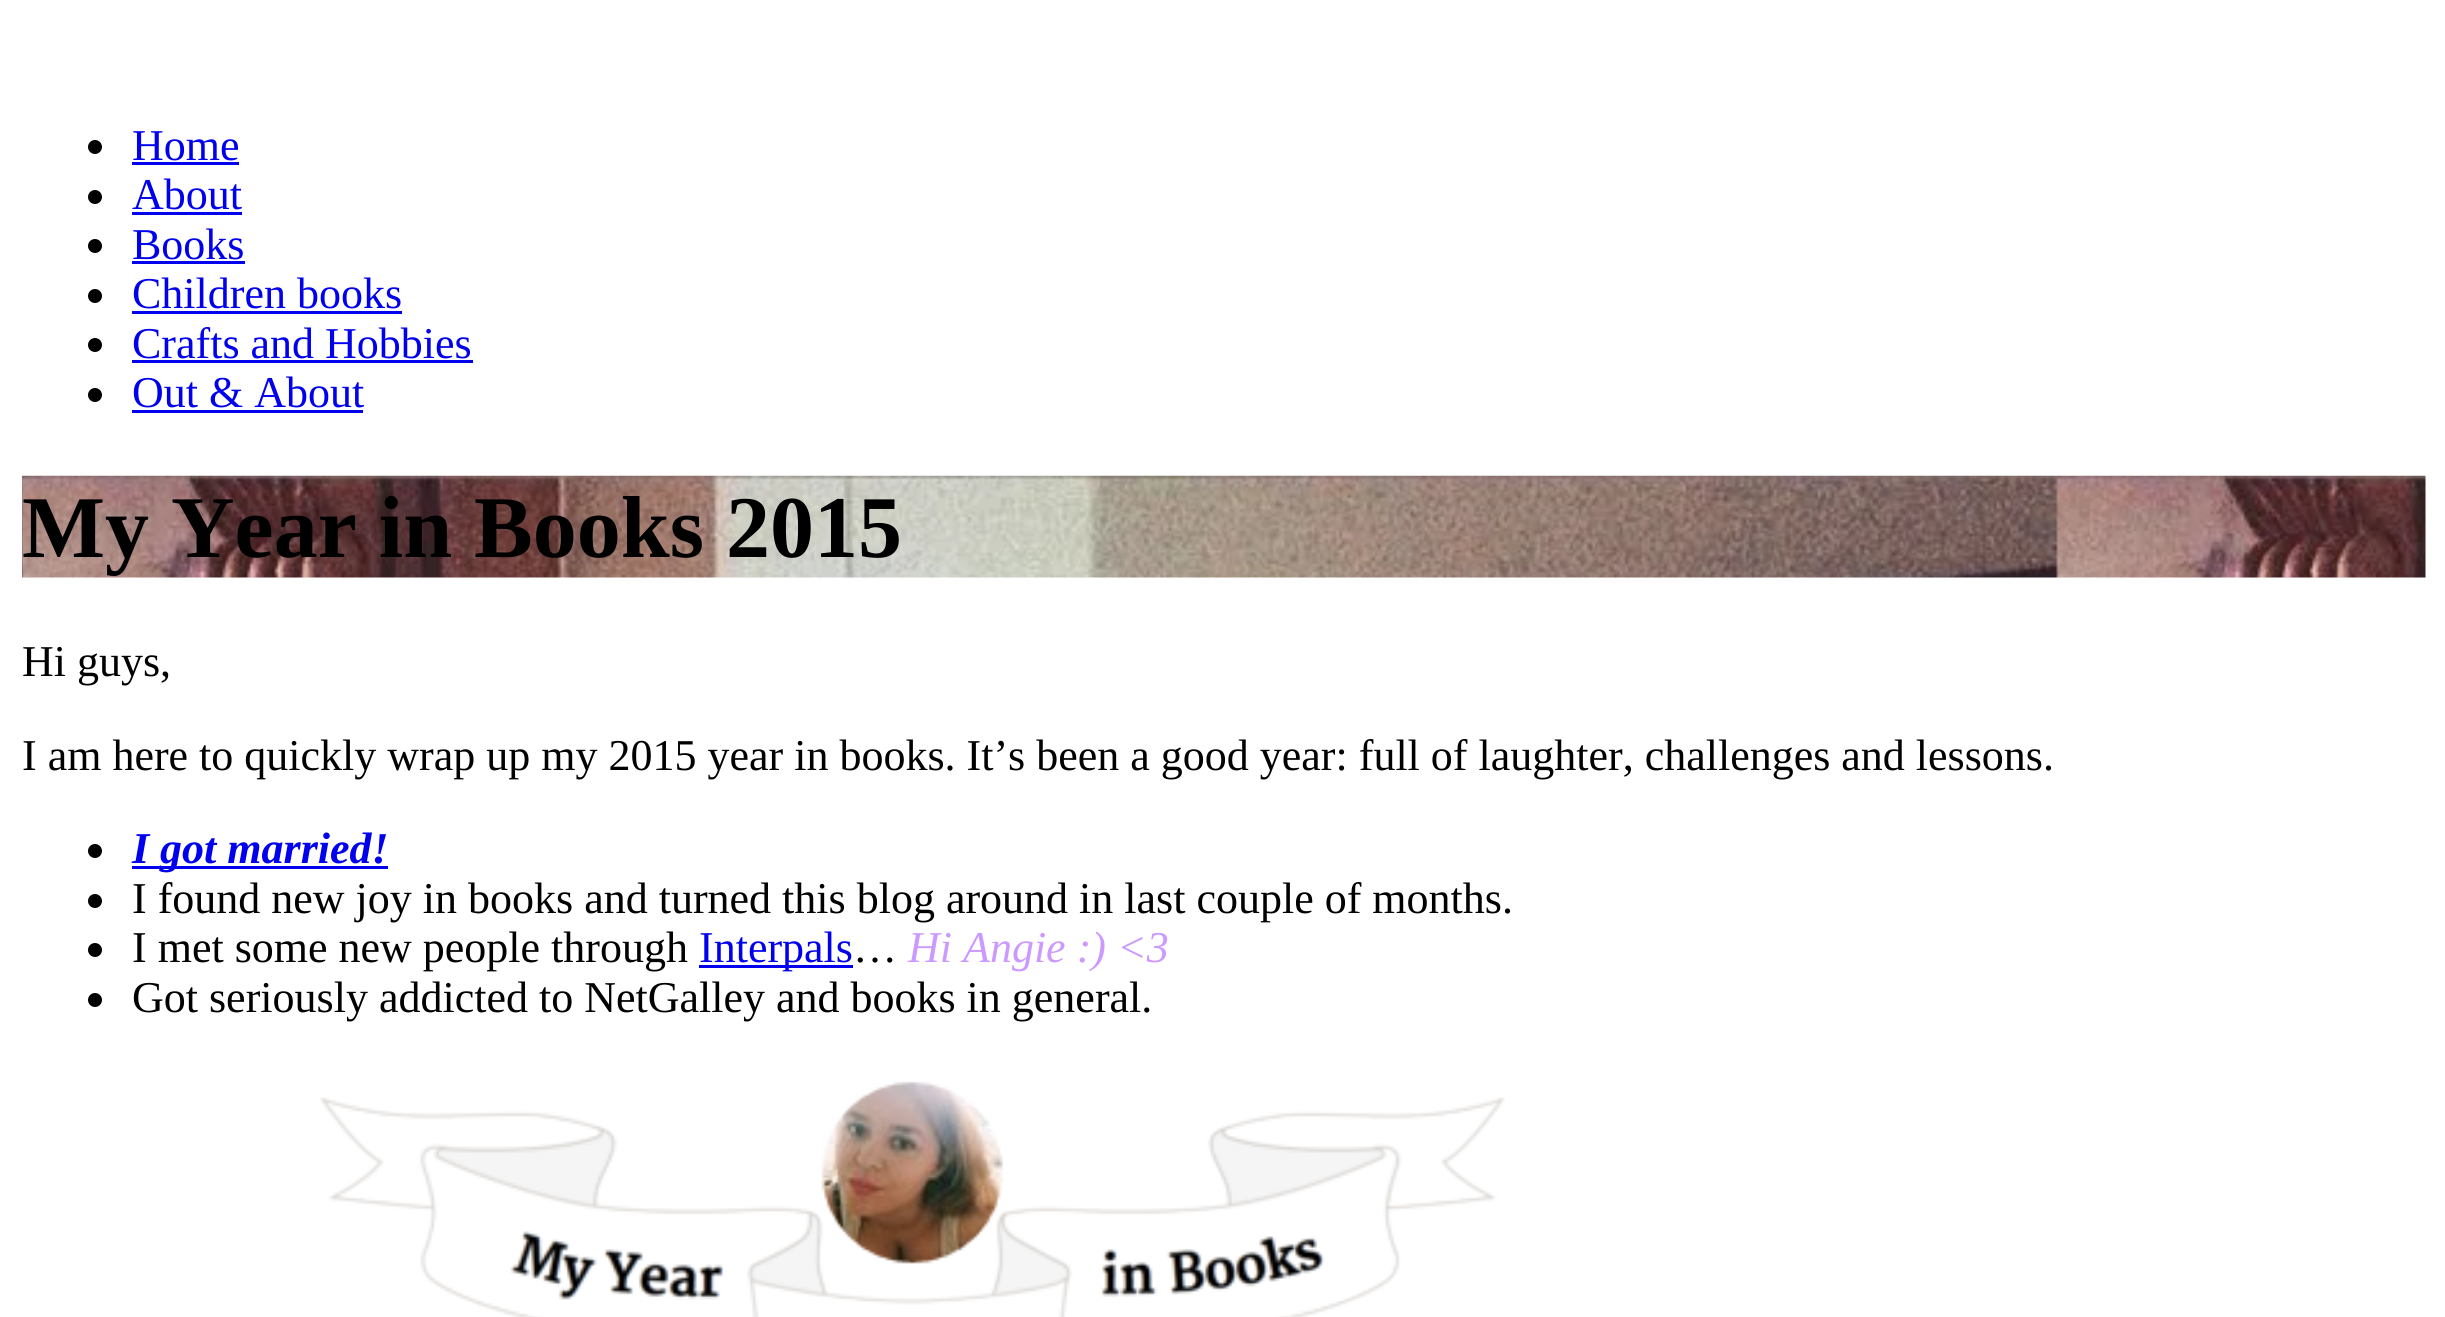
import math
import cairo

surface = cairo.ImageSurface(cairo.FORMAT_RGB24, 2445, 1317)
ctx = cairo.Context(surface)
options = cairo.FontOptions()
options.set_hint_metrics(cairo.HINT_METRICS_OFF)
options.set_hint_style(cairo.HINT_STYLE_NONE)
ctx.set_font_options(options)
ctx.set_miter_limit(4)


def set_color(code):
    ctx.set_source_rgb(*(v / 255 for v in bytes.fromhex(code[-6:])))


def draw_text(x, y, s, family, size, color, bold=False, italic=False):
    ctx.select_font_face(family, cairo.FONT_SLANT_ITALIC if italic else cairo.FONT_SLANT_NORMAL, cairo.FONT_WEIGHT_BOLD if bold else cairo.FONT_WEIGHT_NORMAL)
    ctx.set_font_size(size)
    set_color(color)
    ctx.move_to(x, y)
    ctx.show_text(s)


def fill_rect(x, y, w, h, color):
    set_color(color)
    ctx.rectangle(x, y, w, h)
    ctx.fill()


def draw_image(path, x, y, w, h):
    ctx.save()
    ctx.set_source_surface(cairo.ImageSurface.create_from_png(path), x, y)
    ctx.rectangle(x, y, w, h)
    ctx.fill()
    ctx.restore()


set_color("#ffffff")
ctx.paint()
set_color("#000000")
ctx.arc(95, 147, 7, 0, 2 * math.pi)
ctx.fill()
draw_text(132, 160, "Home", "Liberation Serif", 44, "#0000ee")
fill_rect(132, 162, 107, 3, "#0000ee")
set_color("#000000")
ctx.new_path()
ctx.arc(95, 197, 7, 0, 2 * math.pi)
ctx.fill()
draw_text(132, 209, "About", "Liberation Serif", 44, "#0000ee")
fill_rect(132, 212, 110, 3, "#0000ee")
set_color("#000000")
ctx.new_path()
ctx.arc(95, 246, 7, 0, 2 * math.pi)
ctx.fill()
draw_text(132, 259, "Books", "Liberation Serif", 44, "#0000ee")
fill_rect(132, 261, 113, 3, "#0000ee")
set_color("#000000")
ctx.new_path()
ctx.arc(95, 296, 7, 0, 2 * math.pi)
ctx.fill()
draw_text(132, 308, "Children books", "Liberation Serif", 44, "#0000ee")
fill_rect(132, 311, 270, 3, "#0000ee")
set_color("#000000")
ctx.new_path()
ctx.arc(95, 345, 7, 0, 2 * math.pi)
ctx.fill()
draw_text(132, 358, "Crafts and Hobbies", "Liberation Serif", 44, "#0000ee")
fill_rect(132, 360, 341, 3, "#0000ee")
set_color("#000000")
ctx.new_path()
ctx.arc(95, 395, 7, 0, 2 * math.pi)
ctx.fill()
draw_text(132, 407, "Out & About", "Liberation Serif", 44, "#0000ee")
fill_rect(132, 410, 231, 3, "#0000ee")
draw_image("assets/img1.png", 22, 475, 2404, 103)
draw_text(22, 557, "My Year in Books 2015", "Liberation Serif", 88, "#000000", bold=True)
draw_text(22, 676, "Hi guys,", "Liberation Serif", 44, "#000000")
draw_text(22, 770, "I am here to quickly wrap up my 2015 year in books. It’s been a good year: full of laughter, challenges and lessons.", "Liberation Serif", 44, "#000000")
ctx.new_path()
ctx.arc(95, 851, 7, 0, 2 * math.pi)
ctx.fill()
fill_rect(132, 866, 256, 3, "#0000ee")
draw_text(132, 863, "I got married!", "Liberation Serif", 44, "#0000ee", bold=True, italic=True)
set_color("#000000")
ctx.new_path()
ctx.arc(95, 901, 7, 0, 2 * math.pi)
ctx.fill()
draw_text(132, 913, "I found new joy in books and turned this blog around in last couple of months.", "Liberation Serif", 44, "#000000")
ctx.new_path()
ctx.arc(95, 950, 7, 0, 2 * math.pi)
ctx.fill()
draw_text(132, 962, "I met some new people through", "Liberation Serif", 44, "#000000")
fill_rect(699, 965, 154, 3, "#0000ee")
draw_text(699, 962, "Interpals", "Liberation Serif", 44, "#0000ee")
draw_text(908, 962, "Hi Angie :) <3", "Liberation Serif", 44, "#cc99ff", italic=True)
draw_text(853, 962, "…", "Liberation Serif", 44, "#000000")
ctx.new_path()
ctx.arc(95, 1000, 7, 0, 2 * math.pi)
ctx.fill()
draw_text(132, 1012, "Got seriously addicted to NetGalley and books in general.", "Liberation Serif", 44, "#000000")
draw_image("assets/img2.png", 320, 1081, 1185, 236)
surface.write_to_png("output.png")
